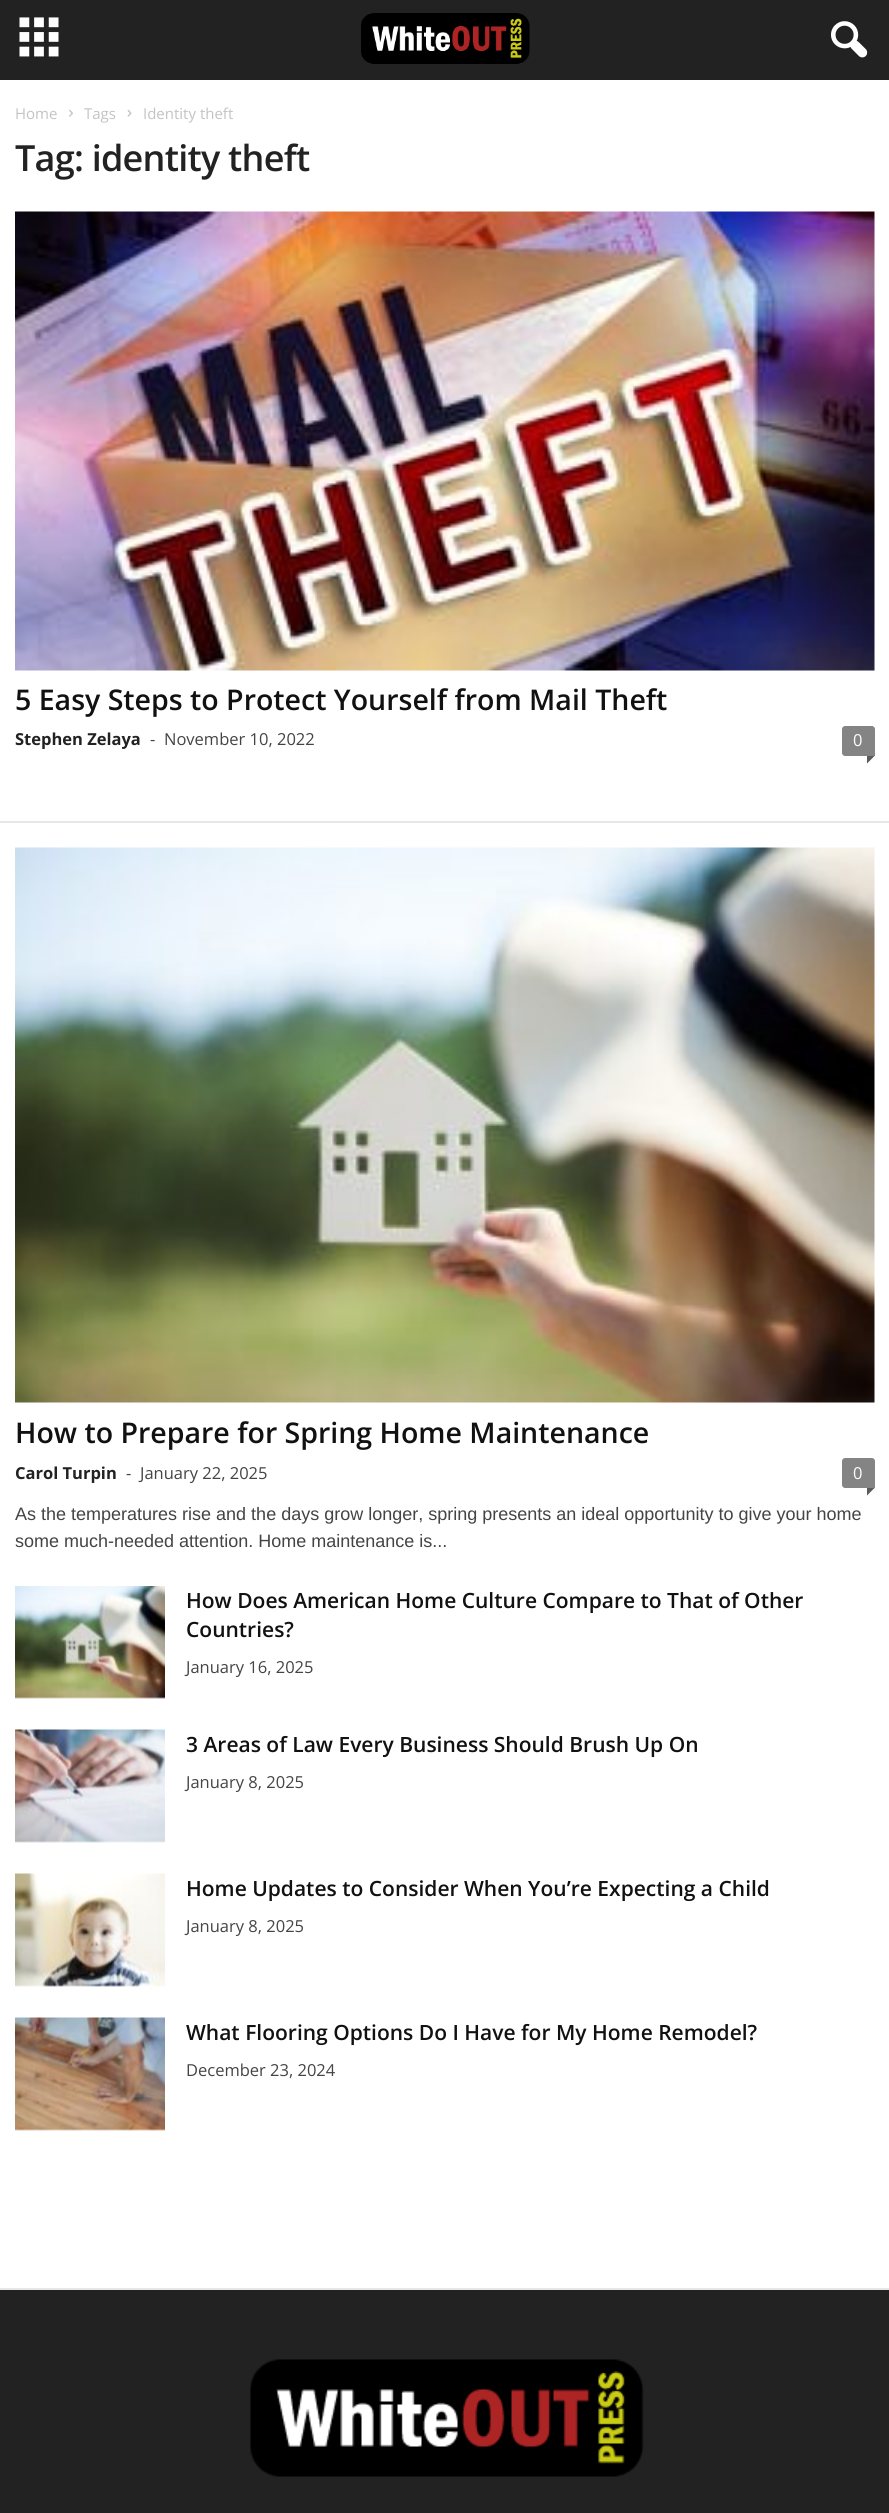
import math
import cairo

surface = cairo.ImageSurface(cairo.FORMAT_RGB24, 889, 2513)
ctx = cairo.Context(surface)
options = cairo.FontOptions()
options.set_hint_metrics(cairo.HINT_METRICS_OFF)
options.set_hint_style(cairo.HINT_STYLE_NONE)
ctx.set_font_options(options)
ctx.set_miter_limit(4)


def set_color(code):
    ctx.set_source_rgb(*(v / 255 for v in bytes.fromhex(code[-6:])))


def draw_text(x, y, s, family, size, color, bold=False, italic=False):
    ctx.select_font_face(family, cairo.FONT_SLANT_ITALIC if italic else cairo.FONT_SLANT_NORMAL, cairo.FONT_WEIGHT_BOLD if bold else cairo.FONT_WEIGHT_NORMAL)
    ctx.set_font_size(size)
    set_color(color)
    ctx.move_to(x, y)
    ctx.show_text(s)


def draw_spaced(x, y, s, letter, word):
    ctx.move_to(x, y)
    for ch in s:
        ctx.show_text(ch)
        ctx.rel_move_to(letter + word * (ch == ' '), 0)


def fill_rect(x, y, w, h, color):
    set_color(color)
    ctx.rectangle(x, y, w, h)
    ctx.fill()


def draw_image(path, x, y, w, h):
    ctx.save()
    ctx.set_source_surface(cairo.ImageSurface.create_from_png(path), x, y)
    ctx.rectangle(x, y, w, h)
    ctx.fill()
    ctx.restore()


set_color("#ffffff")
ctx.paint()
fill_rect(0, 0, 889, 80, "#222222")
draw_image("assets/img1.png", 19, 17, 40, 40)
draw_image("assets/img2.png", 361, 13, 169, 51)
draw_image("assets/img3.png", 831, 21, 37, 37)
fill_rect(0, 2288, 889, 2, "#e6e6e6")
draw_text(15, 119, "Home", "Open Sans", 15, "#c3c3c3")
draw_image("assets/img4.png", 69, 109, 4, 8)
draw_text(84, 119, "Tags", "Open Sans", 15, "#c3c3c3")
draw_image("assets/img5.png", 127, 109, 5, 8)
draw_text(143, 119, "Identity theft", "Open Sans", 15, "#c3c3c3")
ctx.select_font_face("Open Sans SemiBold")
ctx.set_font_size(36)
set_color("#222222")
draw_spaced(15, 171, "Tag: identity theft", -0.75, 0)
draw_image("assets/img6.png", 15, 211, 860, 460)
draw_text(15, 710, "5 Easy Steps to Protect Yourself from Mail Theft", "Open Sans SemiBold", 28.5, "#111111")
draw_text(15, 745, "Stephen Zelaya", "Open Sans", 16.5, "#222222", bold=True)
draw_text(150, 745, "-", "Open Sans", 16.5, "#444444")
draw_text(164, 745, "November 10, 2022", "Open Sans", 16.5, "#444444")
set_color("#848484")
ctx.new_path()
ctx.move_to(845, 726)
ctx.line_to(872, 726)
ctx.curve_to(873.5, 726, 875, 727.5, 875, 729)
ctx.line_to(875, 756)
ctx.line_to(845, 756)
ctx.curve_to(843.5, 756, 842, 754.5, 842, 753)
ctx.line_to(842, 729)
ctx.curve_to(842, 727.5, 843.5, 726, 845, 726)
ctx.close_path()
ctx.fill()
draw_text(853, 746, "0", "Open Sans", 16.5, "#ffffff")
set_color("#5b5b5b")
ctx.new_path()
ctx.move_to(867, 756)
ctx.line_to(874.5, 756)
ctx.line_to(867, 763.5)
ctx.close_path()
ctx.fill()
fill_rect(0, 821, 889, 2, "#e6e6e6")
draw_image("assets/img7.png", 15, 847, 860, 556)
draw_text(15, 1443, "How to Prepare for Spring Home Maintenance", "Open Sans SemiBold", 28.5, "#111111")
draw_text(15, 1479, "Carol Turpin", "Open Sans", 16.5, "#222222", bold=True)
draw_text(126, 1479, "-", "Open Sans", 16.5, "#444444")
draw_text(140, 1479, "January 22, 2025", "Open Sans", 16.5, "#444444")
set_color("#848484")
ctx.new_path()
ctx.move_to(845, 1458)
ctx.line_to(872, 1458)
ctx.curve_to(873.5, 1458, 875, 1459.5, 875, 1461)
ctx.line_to(875, 1488)
ctx.line_to(845, 1488)
ctx.curve_to(843.5, 1488, 842, 1486.5, 842, 1485)
ctx.line_to(842, 1461)
ctx.curve_to(842, 1459.5, 843.5, 1458, 845, 1458)
ctx.close_path()
ctx.fill()
draw_text(853, 1479, "0", "Open Sans", 16.5, "#ffffff")
set_color("#5b5b5b")
ctx.new_path()
ctx.move_to(867, 1488)
ctx.line_to(874.5, 1488)
ctx.line_to(867, 1495.5)
ctx.close_path()
ctx.fill()
draw_text(15, 1520, "As the temperatures rise and the days grow longer, spring presents an ideal opportunity to give your home", "Liberation Sans", 18, "#444444")
draw_text(15, 1547, "some much-needed attention. Home maintenance is...", "Liberation Sans", 18, "#444444")
draw_image("assets/img8.png", 15, 1586, 150, 113)
draw_text(186, 1608, "How Does American Home Culture Compare to That of Other", "Open Sans SemiBold", 21, "#111111")
draw_text(186, 1637, "Countries?", "Open Sans SemiBold", 21, "#111111")
draw_text(186, 1673, "January 16, 2025", "Open Sans", 16.5, "#444444")
draw_image("assets/img9.png", 15, 1729, 150, 114)
draw_text(186, 1752, "3 Areas of Law Every Business Should Brush Up On", "Open Sans SemiBold", 21, "#111111")
draw_text(186, 1788, "January 8, 2025", "Open Sans", 16.5, "#444444")
draw_image("assets/img10.png", 15, 1873, 150, 114)
draw_text(186, 1896, "Home Updates to Consider When You’re Expecting a Child", "Open Sans SemiBold", 21, "#111111")
draw_text(186, 1932, "January 8, 2025", "Open Sans", 16.5, "#444444")
draw_image("assets/img11.png", 15, 2017, 150, 114)
draw_text(186, 2040, "What Flooring Options Do I Have for My Home Remodel?", "Open Sans SemiBold", 21, "#111111")
draw_text(186, 2076, "December 23, 2024", "Open Sans", 16.5, "#444444")
fill_rect(0, 2290, 889, 223, "#222222")
draw_image("assets/img12.png", 250, 2359, 394, 118)
surface.write_to_png("output.png")
